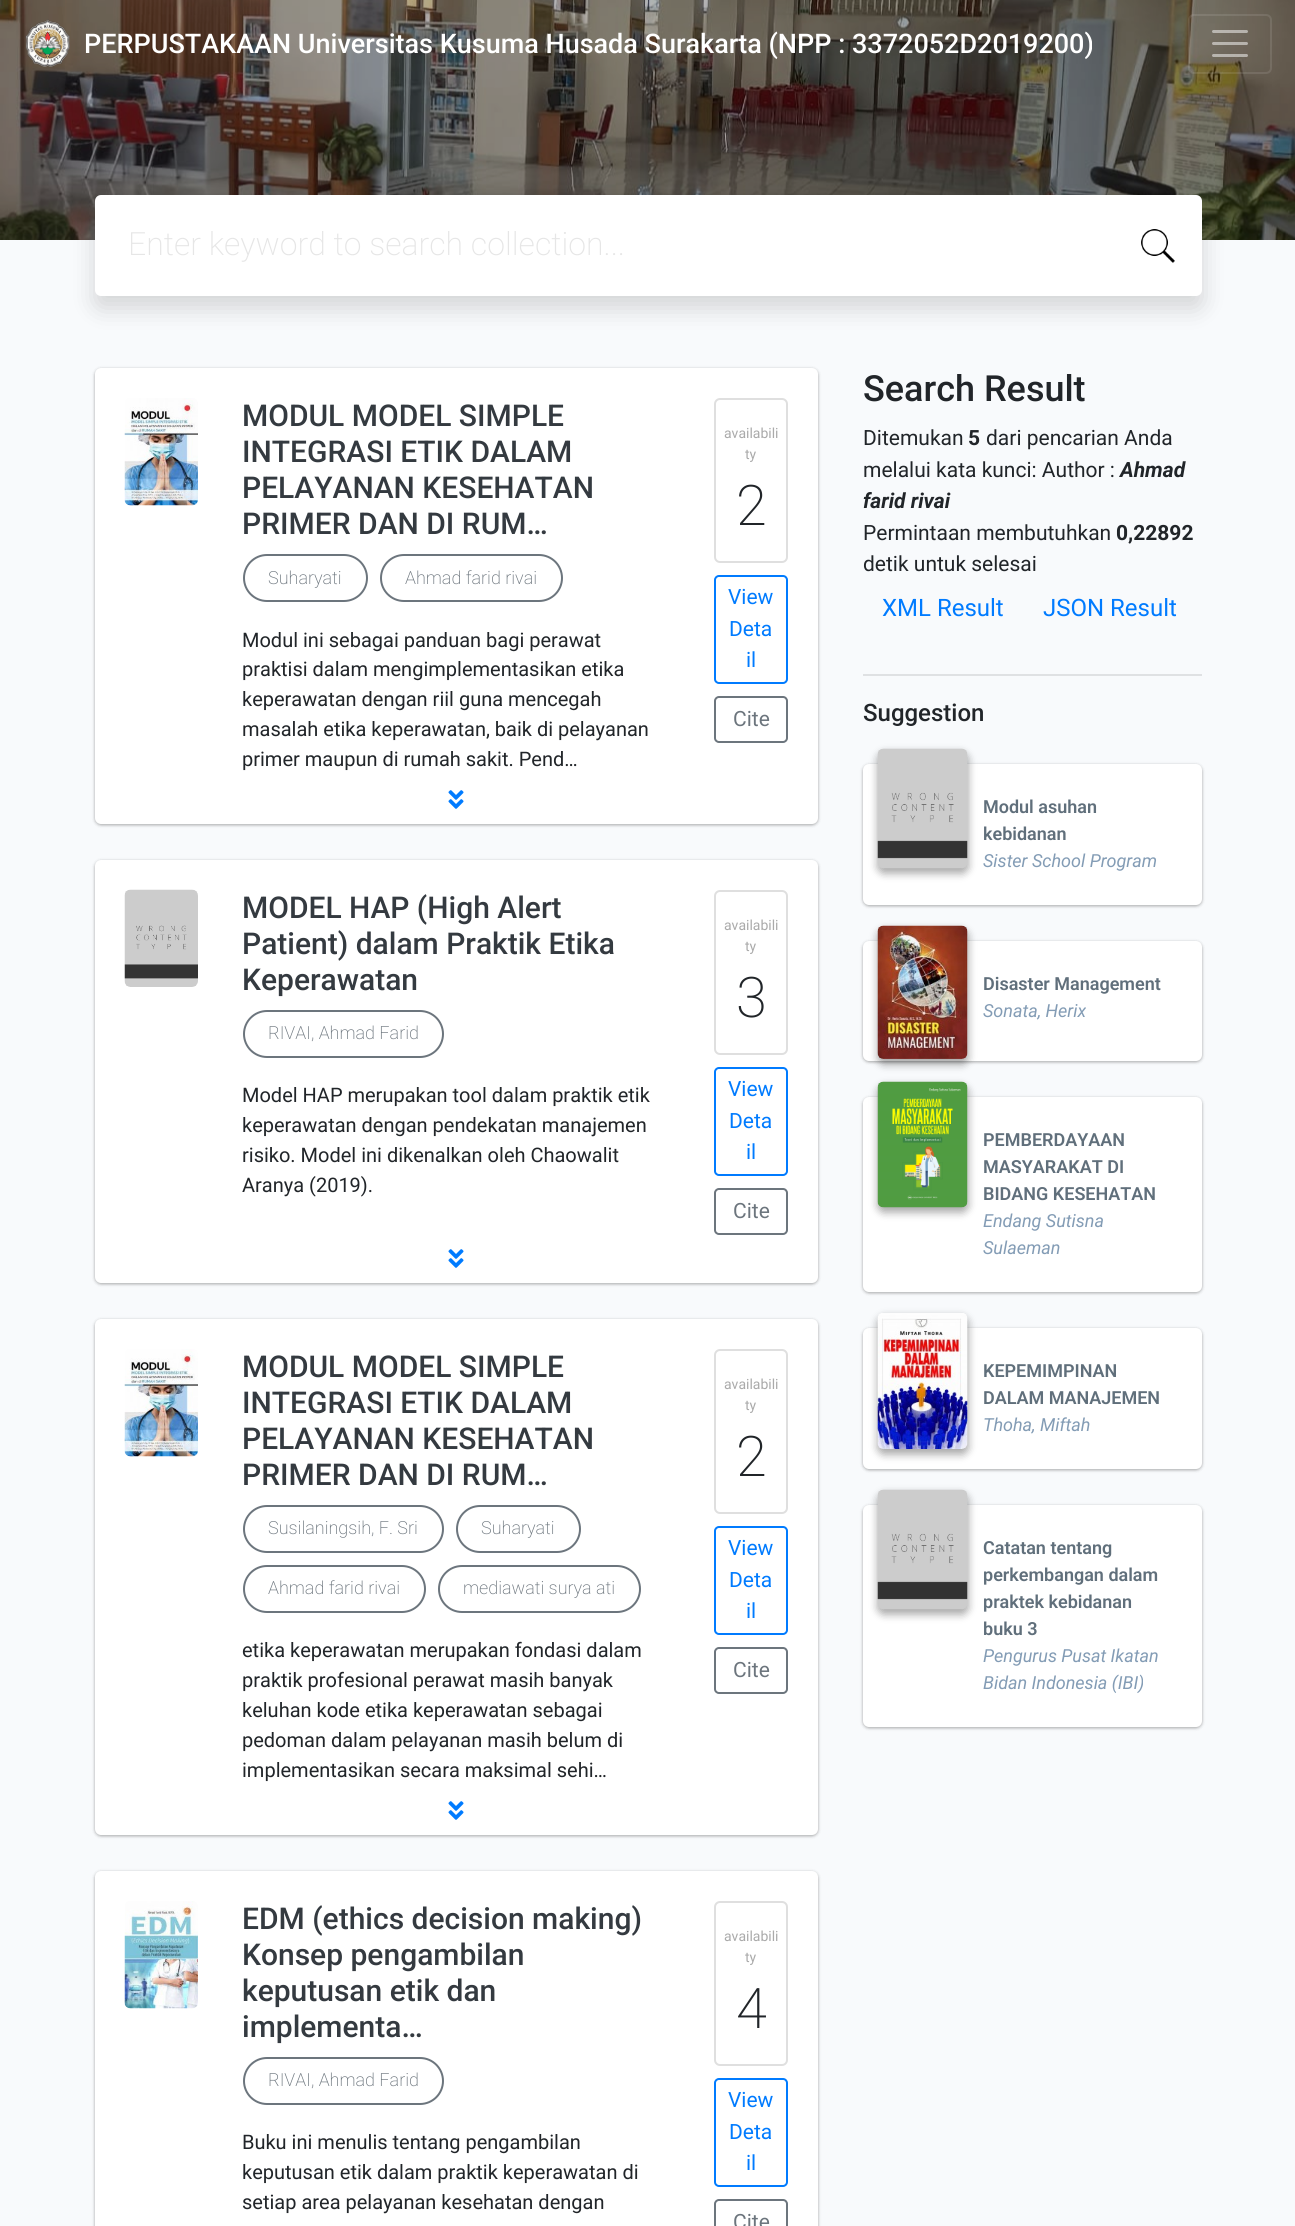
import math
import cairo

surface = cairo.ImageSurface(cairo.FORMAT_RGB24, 1295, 2226)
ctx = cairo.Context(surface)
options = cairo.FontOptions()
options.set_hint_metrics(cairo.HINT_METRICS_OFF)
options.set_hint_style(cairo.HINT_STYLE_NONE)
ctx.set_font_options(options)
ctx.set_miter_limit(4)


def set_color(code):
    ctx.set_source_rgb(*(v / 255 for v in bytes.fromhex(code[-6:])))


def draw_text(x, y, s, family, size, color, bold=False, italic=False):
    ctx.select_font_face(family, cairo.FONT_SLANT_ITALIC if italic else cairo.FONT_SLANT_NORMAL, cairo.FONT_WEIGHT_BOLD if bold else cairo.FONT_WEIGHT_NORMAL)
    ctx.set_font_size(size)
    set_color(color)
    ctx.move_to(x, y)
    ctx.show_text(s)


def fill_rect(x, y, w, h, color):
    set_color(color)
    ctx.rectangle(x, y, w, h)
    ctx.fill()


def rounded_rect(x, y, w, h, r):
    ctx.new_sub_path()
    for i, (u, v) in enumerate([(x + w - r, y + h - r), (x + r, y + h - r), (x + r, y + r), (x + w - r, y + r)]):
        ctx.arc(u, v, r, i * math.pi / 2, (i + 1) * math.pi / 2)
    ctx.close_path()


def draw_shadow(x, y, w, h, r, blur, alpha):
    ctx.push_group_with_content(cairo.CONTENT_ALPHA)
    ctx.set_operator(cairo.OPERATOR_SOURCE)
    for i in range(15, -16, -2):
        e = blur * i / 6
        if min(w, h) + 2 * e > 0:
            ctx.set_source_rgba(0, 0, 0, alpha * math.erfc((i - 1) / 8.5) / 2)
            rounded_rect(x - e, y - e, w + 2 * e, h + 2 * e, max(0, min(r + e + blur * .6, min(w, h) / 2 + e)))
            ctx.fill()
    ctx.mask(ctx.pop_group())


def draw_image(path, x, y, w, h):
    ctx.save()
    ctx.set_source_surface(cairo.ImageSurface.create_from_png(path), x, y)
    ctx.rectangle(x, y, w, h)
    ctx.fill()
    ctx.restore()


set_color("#f8fafc")
ctx.paint()
draw_image("assets/img1.png", 0, 0, 1295, 240)
draw_image("assets/img2.png", 25, 19, 45, 48)
draw_text(84, 53, "PERPUSTAKAAN Universitas Kusuma Husada Surakarta (NPP : 3372052D2019200)", "Roboto Medium", 27, "#ffffff")
rounded_rect(1189, 15, 82, 58, 5)
ctx.set_source_rgba(1, 1, 1, 0.1)
ctx.stroke()
ctx.new_path()
ctx.move_to(1213.5, 31.5)
ctx.line_to(1246.5, 31.5)
ctx.move_to(1213.5, 43.5)
ctx.line_to(1246.5, 43.5)
ctx.move_to(1213.5, 55.5)
ctx.line_to(1246.5, 55.5)
ctx.set_source_rgba(1, 1, 1, 0.5)
ctx.set_line_width(3)
ctx.set_line_cap(cairo.LINE_CAP_ROUND)
ctx.stroke()
set_color("#000000")
draw_shadow(95, 207, 1107, 101, 6, 12, 0.15)
set_color("#ffffff")
rounded_rect(95, 195, 1107, 101, 6)
ctx.fill()
draw_image("assets/img3.png", 1141, 229, 34, 34)
draw_text(128, 255, "Enter keyword to search collection...", "Roboto ExtraLight", 32, "#e6e6e6")
set_color("#000000")
draw_shadow(95, 369, 723, 456, 6, 1.5, 0.24)
draw_shadow(95, 369, 723, 456, 6, 2, 0.12)
set_color("#ffffff")
rounded_rect(95, 368, 723, 456, 6)
ctx.fill()
draw_image("assets/img4.png", 124, 398, 74, 108)
draw_text(242, 426, "MODUL MODEL SIMPLE", "Roboto Medium", 30, "#343a40")
draw_text(242, 462, "INTEGRASI ETIK DALAM", "Roboto Medium", 30, "#343a40")
draw_text(242, 498, "PELAYANAN KESEHATAN", "Roboto Medium", 30, "#343a40")
draw_text(242, 534, "PRIMER DAN DI RUM…", "Roboto Medium", 30, "#343a40")
rounded_rect(244, 555, 123, 46, 23)
set_color("#6c757d")
ctx.set_line_width(2)
ctx.set_line_cap(cairo.LINE_CAP_BUTT)
ctx.stroke()
draw_text(268, 584, "Suharyati", "Roboto ExtraLight", 18, "#6c757d")
rounded_rect(381, 555, 181, 46, 23)
ctx.stroke()
draw_text(405, 584, "Ahmad farid rivai", "Roboto ExtraLight", 18, "#6c757d")
draw_text(242, 647, "Modul ini sebagai panduan bagi perawat", "Roboto", 20, "#212529")
draw_text(242, 676, "praktisi dalam mengimplementasikan etika", "Roboto", 20, "#212529")
draw_text(242, 706, "keperawatan dengan riil guna mencegah", "Roboto", 20, "#212529")
draw_text(242, 736, "masalah etika keperawatan, baik di pelayanan", "Roboto", 20, "#212529")
draw_text(242, 766, "primer maupun di rumah sakit. Pend…", "Roboto", 20, "#212529")
rounded_rect(715, 399, 72, 163, 5)
set_color("#dfdfdf")
ctx.stroke()
draw_text(724, 438, "availabili", "Roboto", 14, "#aaaaaa")
draw_text(745, 459, "ty", "Roboto", 14, "#aaaaaa")
draw_text(736, 525, "2", "Roboto ExtraLight", 56, "#212529")
rounded_rect(715, 576, 72, 107, 4)
set_color("#007bff")
ctx.stroke()
draw_text(728, 604, "View", "Roboto", 21, "#007bff")
draw_text(729, 636, "Deta", "Roboto", 21, "#007bff")
draw_text(746, 667, "il", "Roboto", 21, "#007bff")
rounded_rect(715, 697, 72, 45, 4)
set_color("#6c757d")
ctx.stroke()
draw_text(733, 726, "Cite", "Roboto", 21, "#6c757d")
draw_image("assets/img5.png", 448, 790, 16, 19)
set_color("#000000")
draw_shadow(95, 861, 723, 423, 6, 1.5, 0.24)
draw_shadow(95, 861, 723, 423, 6, 2, 0.12)
set_color("#ffffff")
rounded_rect(95, 860, 723, 423, 6)
ctx.fill()
draw_image("assets/img6.png", 124, 889, 74, 98)
draw_text(242, 918, "MODEL HAP (High Alert", "Roboto Medium", 30, "#343a40")
draw_text(242, 954, "Patient) dalam Praktik Etika", "Roboto Medium", 30, "#343a40")
draw_text(242, 990, "Keperawatan", "Roboto Medium", 30, "#343a40")
rounded_rect(244, 1011, 199, 46, 23)
set_color("#6c757d")
ctx.stroke()
draw_text(268, 1039, "RIVAI, Ahmad Farid", "Roboto ExtraLight", 18, "#6c757d")
draw_text(242, 1102, "Model HAP merupakan tool dalam praktik etik", "Roboto", 20, "#212529")
draw_text(242, 1132, "keperawatan dengan pendekatan manajemen", "Roboto", 20, "#212529")
draw_text(242, 1162, "risiko. Model ini dikenalkan oleh Chaowalit", "Roboto", 20, "#212529")
draw_text(242, 1192, "Aranya (2019).", "Roboto", 20, "#212529")
rounded_rect(715, 891, 72, 163, 5)
set_color("#dfdfdf")
ctx.stroke()
draw_text(724, 930, "availabili", "Roboto", 14, "#aaaaaa")
draw_text(745, 951, "ty", "Roboto", 14, "#aaaaaa")
draw_text(736, 1017, "3", "Roboto ExtraLight", 56, "#212529")
rounded_rect(715, 1068, 72, 107, 4)
set_color("#007bff")
ctx.stroke()
draw_text(728, 1096, "View", "Roboto", 21, "#007bff")
draw_text(729, 1128, "Deta", "Roboto", 21, "#007bff")
draw_text(746, 1159, "il", "Roboto", 21, "#007bff")
rounded_rect(715, 1189, 72, 45, 4)
set_color("#6c757d")
ctx.stroke()
draw_text(733, 1218, "Cite", "Roboto", 21, "#6c757d")
draw_image("assets/img5.png", 448, 1249, 16, 19)
set_color("#000000")
draw_shadow(95, 1320, 723, 516, 6, 1.5, 0.24)
draw_shadow(95, 1320, 723, 516, 6, 2, 0.12)
set_color("#ffffff")
rounded_rect(95, 1319, 723, 516, 6)
ctx.fill()
draw_image("assets/img7.png", 124, 1349, 74, 108)
draw_text(242, 1377, "MODUL MODEL SIMPLE", "Roboto Medium", 30, "#343a40")
draw_text(242, 1413, "INTEGRASI ETIK DALAM", "Roboto Medium", 30, "#343a40")
draw_text(242, 1449, "PELAYANAN KESEHATAN", "Roboto Medium", 30, "#343a40")
draw_text(242, 1485, "PRIMER DAN DI RUM…", "Roboto Medium", 30, "#343a40")
rounded_rect(244, 1506, 199, 46, 23)
set_color("#6c757d")
ctx.stroke()
draw_text(268, 1534, "Susilaningsih, F. Sri", "Roboto ExtraLight", 18, "#6c757d")
rounded_rect(457, 1506, 123, 46, 23)
ctx.stroke()
draw_text(481, 1534, "Suharyati", "Roboto ExtraLight", 18, "#6c757d")
rounded_rect(244, 1566, 181, 46, 23)
ctx.stroke()
draw_text(268, 1594, "Ahmad farid rivai", "Roboto ExtraLight", 18, "#6c757d")
rounded_rect(439, 1566, 201, 46, 23)
ctx.stroke()
draw_text(463, 1594, "mediawati surya ati", "Roboto ExtraLight", 18, "#6c757d")
draw_text(242, 1657, "etika keperawatan merupakan fondasi dalam", "Roboto", 20, "#212529")
draw_text(242, 1687, "praktik profesional perawat masih banyak", "Roboto", 20, "#212529")
draw_text(242, 1717, "keluhan kode etika keperawatan sebagai", "Roboto", 20, "#212529")
draw_text(242, 1747, "pedoman dalam pelayanan masih belum di", "Roboto", 20, "#212529")
draw_text(242, 1777, "implementasikan secara maksimal sehi…", "Roboto", 20, "#212529")
rounded_rect(715, 1350, 72, 163, 5)
set_color("#dfdfdf")
ctx.stroke()
draw_text(724, 1389, "availabili", "Roboto", 14, "#aaaaaa")
draw_text(745, 1410, "ty", "Roboto", 14, "#aaaaaa")
draw_text(736, 1476, "2", "Roboto ExtraLight", 56, "#212529")
rounded_rect(715, 1527, 72, 107, 4)
set_color("#007bff")
ctx.stroke()
draw_text(728, 1555, "View", "Roboto", 21, "#007bff")
draw_text(729, 1587, "Deta", "Roboto", 21, "#007bff")
draw_text(746, 1618, "il", "Roboto", 21, "#007bff")
rounded_rect(715, 1648, 72, 45, 4)
set_color("#6c757d")
ctx.stroke()
draw_text(733, 1677, "Cite", "Roboto", 21, "#6c757d")
draw_image("assets/img5.png", 448, 1801, 16, 19)
set_color("#000000")
draw_shadow(95, 1872, 723, 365, 6, 1.5, 0.24)
draw_shadow(95, 1872, 723, 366, 6, 2, 0.12)
set_color("#ffffff")
rounded_rect(95, 1871, 723, 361, 6)
ctx.fill()
draw_image("assets/img8.png", 124, 1901, 74, 108)
draw_text(242, 1929, "EDM (ethics decision making)", "Roboto Medium", 30, "#343a40")
draw_text(242, 1965, "Konsep pengambilan", "Roboto Medium", 30, "#343a40")
draw_text(242, 2001, "keputusan etik dan", "Roboto Medium", 30, "#343a40")
draw_text(242, 2037, "implementa…", "Roboto Medium", 30, "#343a40")
rounded_rect(244, 2058, 199, 46, 23)
set_color("#6c757d")
ctx.stroke()
draw_text(268, 2086, "RIVAI, Ahmad Farid", "Roboto ExtraLight", 18, "#6c757d")
draw_text(242, 2149, "Buku ini menulis tentang pengambilan", "Roboto", 20, "#212529")
draw_text(242, 2179, "keputusan etik dalam praktik keperawatan di", "Roboto", 20, "#212529")
draw_text(242, 2209, "setiap area pelayanan kesehatan dengan", "Roboto", 20, "#212529")
rounded_rect(715, 1902, 72, 163, 5)
set_color("#dfdfdf")
ctx.stroke()
draw_text(724, 1941, "availabili", "Roboto", 14, "#aaaaaa")
draw_text(745, 1962, "ty", "Roboto", 14, "#aaaaaa")
draw_text(736, 2028, "4", "Roboto ExtraLight", 56, "#212529")
rounded_rect(715, 2079, 72, 107, 4)
set_color("#007bff")
ctx.stroke()
draw_text(728, 2107, "View", "Roboto", 21, "#007bff")
draw_text(729, 2139, "Deta", "Roboto", 21, "#007bff")
draw_text(746, 2170, "il", "Roboto", 21, "#007bff")
rounded_rect(715, 2200, 72, 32, 4)
set_color("#6c757d")
ctx.stroke()
draw_text(733, 2229, "Cite", "Roboto", 21, "#6c757d")
draw_text(863, 401, "Search Result", "Roboto Medium", 36, "#212529")
draw_text(863, 445, "Ditemukan", "Roboto", 21, "#212529")
draw_text(968, 445, "5", "Roboto", 21, "#212529", bold=True)
draw_text(986, 445, "dari pencarian Anda", "Roboto", 21, "#212529")
draw_text(863, 477, "melalui kata kunci: Author :", "Roboto", 21, "#212529")
draw_text(1120, 477, "Ahmad", "Roboto", 21, "#212529", bold=True, italic=True)
draw_text(863, 508, "farid rivai", "Roboto", 21, "#212529", bold=True, italic=True)
draw_text(863, 540, "Permintaan membutuhkan", "Roboto", 21, "#212529")
draw_text(1116, 540, "0,22892", "Roboto", 21, "#212529", bold=True)
draw_text(863, 571, "detik untuk selesai", "Roboto", 21, "#212529")
draw_text(882, 616, "XML Result", "Roboto", 24, "#007bff")
draw_text(1043, 616, "JSON Result", "Roboto", 24, "#007bff")
fill_rect(863, 674, 339, 2, "#dfe1e3")
draw_text(863, 721, "Suggestion", "Roboto Medium", 24, "#212529")
set_color("#000000")
draw_shadow(863, 765, 339, 141, 6, 1.5, 0.24)
draw_shadow(863, 765, 339, 141, 6, 2, 0.12)
set_color("#ffffff")
rounded_rect(863, 764, 339, 141, 6)
ctx.fill()
set_color("#000000")
draw_shadow(878, 753, 90, 120, 6, 4.5, 0.23)
draw_shadow(878, 753, 90, 120, 6, 4.5, 0.16)
draw_image("assets/img9.png", 877, 748, 91, 121)
draw_text(983, 813, "Modul asuhan", "Roboto SemiBold", 18, "#606f7b")
draw_text(983, 840, "kebidanan", "Roboto SemiBold", 18, "#606f7b")
draw_text(983, 867, "Sister School Program", "Roboto", 18, "#839cb5", italic=True)
set_color("#000000")
draw_shadow(863, 942, 339, 120, 6, 1.5, 0.24)
draw_shadow(863, 942, 339, 120, 6, 2, 0.12)
set_color("#ffffff")
rounded_rect(863, 941, 339, 120, 6)
ctx.fill()
set_color("#000000")
draw_shadow(878, 930, 90, 134, 6, 4.5, 0.23)
draw_shadow(878, 930, 90, 134, 6, 4.5, 0.16)
draw_image("assets/img10.png", 877, 925, 91, 134)
draw_text(983, 990, "Disaster Management", "Roboto SemiBold", 18, "#606f7b")
draw_text(983, 1017, "Sonata, Herix", "Roboto", 18, "#839cb5", italic=True)
set_color("#000000")
draw_shadow(863, 1098, 339, 195, 6, 1.5, 0.24)
draw_shadow(863, 1098, 339, 195, 6, 2, 0.12)
set_color("#ffffff")
rounded_rect(863, 1097, 339, 195, 6)
ctx.fill()
set_color("#000000")
draw_shadow(878, 1086, 90, 126, 6, 4.5, 0.23)
draw_shadow(878, 1086, 90, 126, 6, 4.5, 0.16)
draw_image("assets/img11.png", 877, 1081, 91, 127)
draw_text(983, 1146, "PEMBERDAYAAN", "Roboto SemiBold", 18, "#606f7b")
draw_text(983, 1173, "MASYARAKAT DI", "Roboto SemiBold", 18, "#606f7b")
draw_text(983, 1200, "BIDANG KESEHATAN", "Roboto SemiBold", 18, "#606f7b")
draw_text(983, 1227, "Endang Sutisna", "Roboto", 18, "#839cb5", italic=True)
draw_text(983, 1254, "Sulaeman", "Roboto", 18, "#839cb5", italic=True)
set_color("#000000")
draw_shadow(863, 1329, 339, 141, 6, 1.5, 0.24)
draw_shadow(863, 1329, 339, 141, 6, 2, 0.12)
set_color("#ffffff")
rounded_rect(863, 1328, 339, 141, 6)
ctx.fill()
set_color("#000000")
draw_shadow(878, 1317, 90, 137, 6, 4.5, 0.23)
draw_shadow(878, 1317, 90, 137, 6, 4.5, 0.16)
draw_image("assets/img12.png", 877, 1313, 91, 136)
draw_text(983, 1377, "KEPEMIMPINAN", "Roboto SemiBold", 18, "#606f7b")
draw_text(983, 1404, "DALAM MANAJEMEN", "Roboto SemiBold", 18, "#606f7b")
draw_text(983, 1431, "Thoha, Miftah", "Roboto", 18, "#839cb5", italic=True)
set_color("#000000")
draw_shadow(863, 1506, 339, 222, 6, 1.5, 0.24)
draw_shadow(863, 1506, 339, 222, 6, 2, 0.12)
set_color("#ffffff")
rounded_rect(863, 1505, 339, 222, 6)
ctx.fill()
set_color("#000000")
draw_shadow(878, 1494, 90, 120, 6, 4.5, 0.23)
draw_shadow(878, 1494, 90, 120, 6, 4.5, 0.16)
draw_image("assets/img9.png", 877, 1489, 91, 121)
draw_text(983, 1554, "Catatan tentang", "Roboto SemiBold", 18, "#606f7b")
draw_text(983, 1581, "perkembangan dalam", "Roboto SemiBold", 18, "#606f7b")
draw_text(983, 1608, "praktek kebidanan", "Roboto SemiBold", 18, "#606f7b")
draw_text(983, 1635, "buku 3", "Roboto SemiBold", 18, "#606f7b")
draw_text(983, 1662, "Pengurus Pusat Ikatan", "Roboto", 18, "#839cb5", italic=True)
draw_text(983, 1689, "Bidan Indonesia (IBI)", "Roboto", 18, "#839cb5", italic=True)
surface.write_to_png("output.png")
